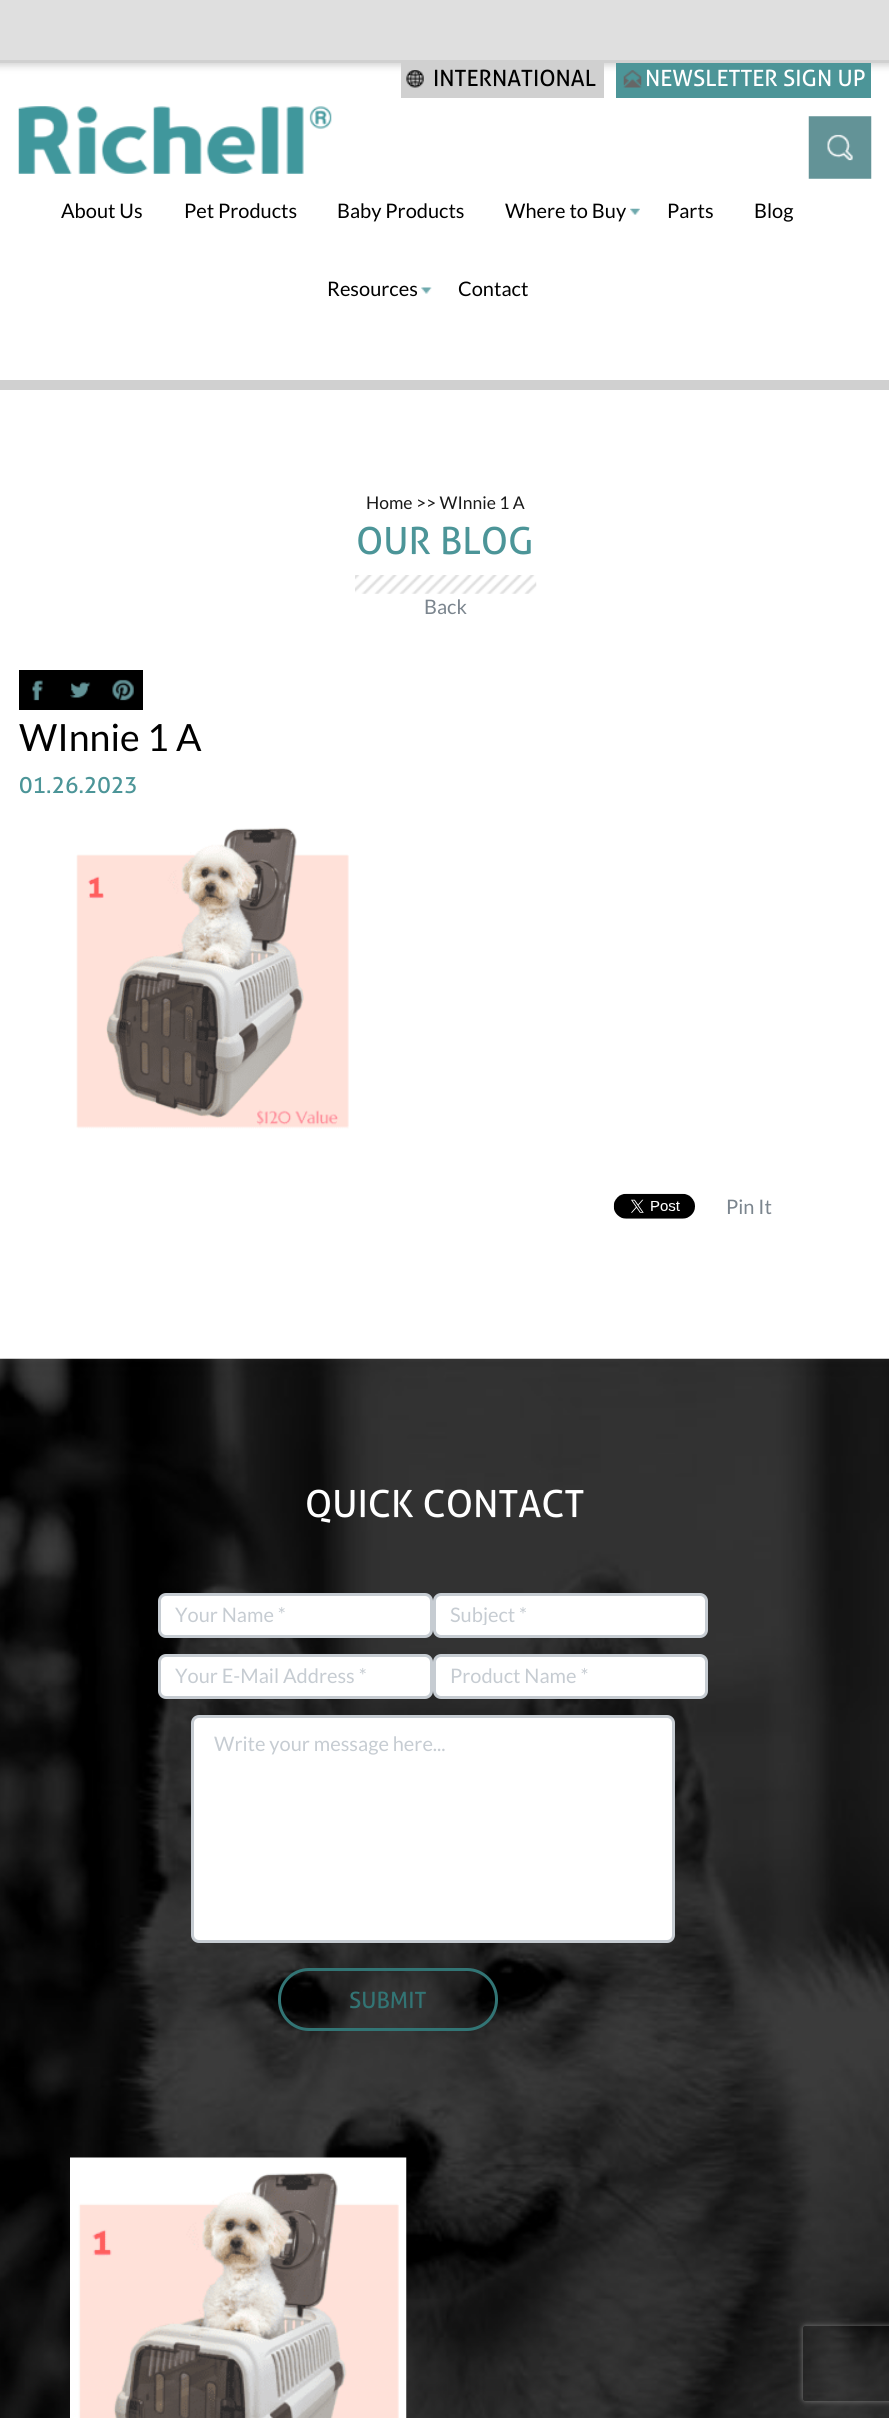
import math
import cairo

surface = cairo.ImageSurface(cairo.FORMAT_RGB24, 889, 2418)
ctx = cairo.Context(surface)
options = cairo.FontOptions()
options.set_hint_metrics(cairo.HINT_METRICS_OFF)
options.set_hint_style(cairo.HINT_STYLE_NONE)
ctx.set_font_options(options)
ctx.set_miter_limit(4)


def set_color(code):
    ctx.set_source_rgb(*(v / 255 for v in bytes.fromhex(code[-6:])))


def draw_text(x, y, s, family, size, color, bold=False, italic=False):
    ctx.select_font_face(family, cairo.FONT_SLANT_ITALIC if italic else cairo.FONT_SLANT_NORMAL, cairo.FONT_WEIGHT_BOLD if bold else cairo.FONT_WEIGHT_NORMAL)
    ctx.set_font_size(size)
    set_color(color)
    ctx.move_to(x, y)
    ctx.show_text(s)


def fill_rect(x, y, w, h, color):
    set_color(color)
    ctx.rectangle(x, y, w, h)
    ctx.fill()


def rounded_rect(x, y, w, h, r):
    ctx.new_sub_path()
    for i, (u, v) in enumerate([(x + w - r, y + h - r), (x + r, y + h - r), (x + r, y + r), (x + w - r, y + r)]):
        ctx.arc(u, v, r, i * math.pi / 2, (i + 1) * math.pi / 2)
    ctx.close_path()


def draw_shadow(x, y, w, h, r, blur, alpha):
    ctx.push_group_with_content(cairo.CONTENT_ALPHA)
    ctx.set_operator(cairo.OPERATOR_SOURCE)
    for i in range(15, -16, -2):
        e = blur * i / 6
        if min(w, h) + 2 * e > 0:
            ctx.set_source_rgba(0, 0, 0, alpha * math.erfc((i - 1) / 8.5) / 2)
            rounded_rect(x - e, y - e, w + 2 * e, h + 2 * e, max(0, min(r + e + blur * .6, min(w, h) / 2 + e)))
            ctx.fill()
    ctx.mask(ctx.pop_group())


def draw_image(path, x, y, w, h):
    ctx.save()
    ctx.set_source_surface(cairo.ImageSurface.create_from_png(path), x, y)
    ctx.rectangle(x, y, w, h)
    ctx.fill()
    ctx.restore()


set_color("#ffffff")
ctx.paint()
set_color("#cccccc")
draw_shadow(-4, -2, 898, 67, 0, 4, 1)
fill_rect(0, 0, 889, 60, "#dfdfdf")
fill_rect(0, 60, 889, 3, "#d0d0d0")
fill_rect(401, 63, 203, 35, "#d0d0d0")
draw_image("assets/img1.png", 406, 70, 18, 18)
draw_text(433, 86, "INTERNATIONAL", "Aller", 22.5, "#000000")
fill_rect(616, 63, 255, 35, "#4c9598")
draw_image("assets/img2.png", 623, 70, 19, 18)
draw_text(645, 86, "NEWSLETTER SIGN UP", "Aller", 22.5, "#ffffff")
draw_image("assets/img3.png", 18, 106, 314, 68)
draw_image("assets/img4.png", 808, 116, 64, 63)
draw_text(61, 218, "About Us", "Lato", 20, "#000000")
draw_text(184, 218, "Pet Products", "Lato", 20, "#000000")
draw_text(337, 218, "Baby Products", "Lato", 20, "#000000")
draw_text(505, 218, "Where to Buy", "Lato", 20, "#000000")
draw_image("assets/img5.png", 630, 208, 10, 7)
draw_text(667, 218, "Parts", "Lato", 20, "#000000")
draw_text(754, 218, "Blog", "Lato", 20, "#000000")
draw_text(327, 296, "Resources", "Lato", 20, "#000000")
draw_image("assets/img6.png", 421, 287, 11, 7)
draw_text(458, 296, "Contact", "Lato", 20, "#000000")
fill_rect(0, 380, 889, 10, "#d0d0d0")
draw_text(366, 509, "Home >> WInnie 1 A", "Lato", 17.5, "#191919")
draw_text(356, 554, "OUR BLOG", "Aller", 37.5, "#4c9598")
draw_image("assets/img7.png", 355, 575, 182, 19)
draw_text(424, 614, "Back", "Lato", 20, "#7b858e")
fill_rect(19, 670, 124, 40, "#000000")
draw_image("assets/img8.png", 32, 680, 11, 21)
draw_image("assets/img9.png", 70, 682, 21, 16)
draw_image("assets/img10.png", 112, 679, 22, 22)
draw_text(19, 751, "WInnie 1 A", "Lato", 37.5, "#000000")
draw_text(19, 793, "01.26.2023", "Aller", 22.5, "#4c9598")
draw_image("assets/img11.png", 76, 827, 273, 302)
draw_image("assets/img12.png", 613, 1193, 82, 26)
draw_text(726, 1214, "Pin It", "Lato", 20, "#7b858e")
draw_image("assets/img13.png", 0, 1358, 889, 1060)
draw_text(305, 1517, "QUICK CONTACT", "Aller", 37.5, "#ffffff")
rounded_rect(159.5, 1594.5, 272, 42, 6.5)
ctx.fill_preserve()
set_color("#c6ccd2")
ctx.set_line_width(3)
ctx.stroke()
draw_text(175, 1622, "Your Name *", "Lato", 20, "#c6ccd2")
set_color("#ffffff")
rounded_rect(434.5, 1594.5, 272, 42, 6.5)
ctx.fill_preserve()
set_color("#c6ccd2")
ctx.stroke()
ctx.save()
ctx.rectangle(450, 1601, 255, 24)
ctx.clip()
draw_text(450, 1622, "Subject *", "Lato", 20, "#c6ccd2")
ctx.restore()
set_color("#ffffff")
rounded_rect(159.5, 1655.5, 272, 42, 6.5)
ctx.fill_preserve()
set_color("#c6ccd2")
ctx.stroke()
draw_text(175, 1683, "Your E-Mail Address *", "Lato", 20, "#c6ccd2")
set_color("#ffffff")
rounded_rect(434.5, 1655.5, 272, 42, 6.5)
ctx.fill_preserve()
set_color("#c6ccd2")
ctx.stroke()
draw_text(450, 1683, "Product Name *", "Lato", 20, "#c6ccd2")
set_color("#ffffff")
rounded_rect(192.5, 1716.5, 481, 225, 6.5)
ctx.fill_preserve()
set_color("#c6ccd2")
ctx.stroke()
draw_text(214, 1751, "Write your message here...", "Lato", 20, "#c6ccd2")
rounded_rect(279.5, 1969.5, 217, 60, 29.5)
set_color("#327575")
ctx.stroke()
draw_text(349, 2008, "SUBMIT", "Aller", 22.5, "#327575")
draw_image("assets/img14.png", 70, 2157, 337, 261)
ctx.save()
ctx.set_fill_rule(cairo.FILL_RULE_EVEN_ODD)
ctx.new_path()
ctx.move_to(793, 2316)
ctx.line_to(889, 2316)
ctx.line_to(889, 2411)
ctx.line_to(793, 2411)
ctx.close_path()
ctx.move_to(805.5, 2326)
ctx.line_to(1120.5, 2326)
ctx.curve_to(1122, 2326, 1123, 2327, 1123, 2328.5)
ctx.line_to(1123, 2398.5)
ctx.curve_to(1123, 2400, 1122, 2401, 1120.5, 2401)
ctx.line_to(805.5, 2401)
ctx.curve_to(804, 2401, 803, 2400, 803, 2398.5)
ctx.line_to(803, 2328.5)
ctx.curve_to(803, 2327, 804, 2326, 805.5, 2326)
ctx.close_path()
ctx.clip()
set_color("#808080")
draw_shadow(803, 2326, 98, 75, 2.5, 3, 1)
ctx.restore()
surface.write_to_png("output.png")
